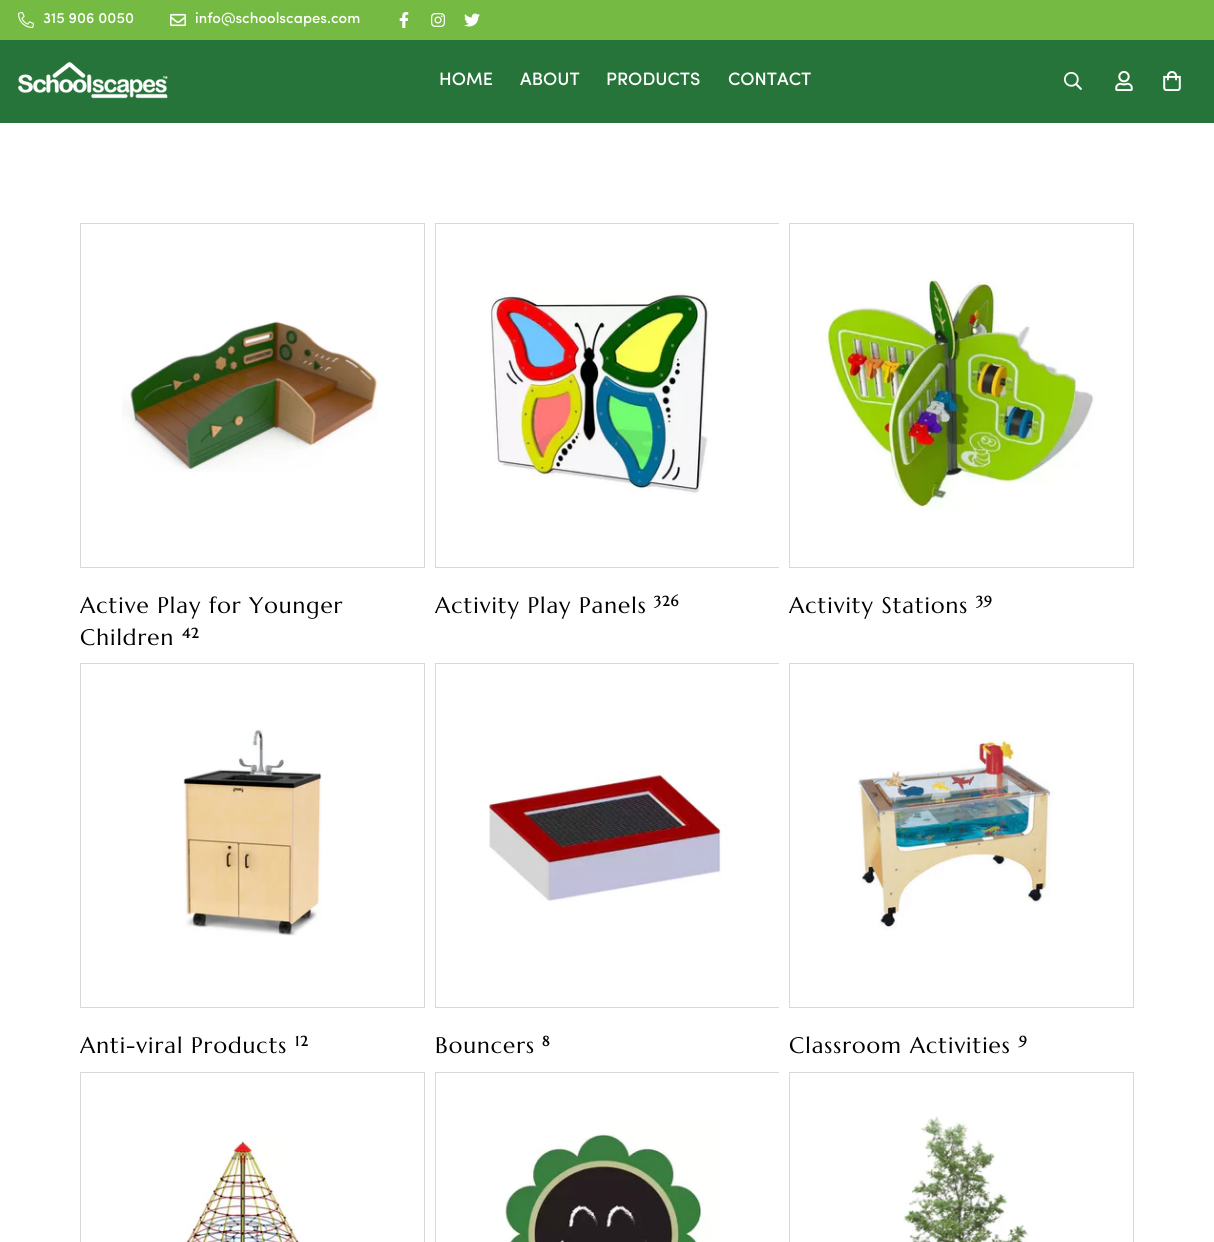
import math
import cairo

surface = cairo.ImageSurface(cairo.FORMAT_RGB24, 1214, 1242)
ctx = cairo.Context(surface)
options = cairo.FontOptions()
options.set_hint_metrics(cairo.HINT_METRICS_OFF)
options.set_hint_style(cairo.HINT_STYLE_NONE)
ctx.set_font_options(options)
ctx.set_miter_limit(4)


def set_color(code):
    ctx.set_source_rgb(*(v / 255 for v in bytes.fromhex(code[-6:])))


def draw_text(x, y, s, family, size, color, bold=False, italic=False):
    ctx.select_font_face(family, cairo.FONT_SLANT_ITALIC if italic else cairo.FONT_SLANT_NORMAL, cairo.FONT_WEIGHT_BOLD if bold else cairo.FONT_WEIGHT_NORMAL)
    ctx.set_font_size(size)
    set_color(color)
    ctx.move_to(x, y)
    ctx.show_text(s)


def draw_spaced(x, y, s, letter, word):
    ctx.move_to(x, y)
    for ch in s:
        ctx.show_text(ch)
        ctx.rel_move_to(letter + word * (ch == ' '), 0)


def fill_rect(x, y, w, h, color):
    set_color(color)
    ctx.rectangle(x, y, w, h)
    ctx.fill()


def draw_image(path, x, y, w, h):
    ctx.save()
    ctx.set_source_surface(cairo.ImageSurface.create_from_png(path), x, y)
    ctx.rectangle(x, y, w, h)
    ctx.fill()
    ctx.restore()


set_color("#ffffff")
ctx.paint()
fill_rect(0, 0, 1214, 40, "#75ba43")
draw_image("assets/img1.png", 18, 12, 16, 16)
draw_text(43, 23, "315 906 0050", "Sofia Medium", 15, "#ffffff")
draw_image("assets/img2.png", 170, 13, 16, 14)
draw_text(195, 23, "info@schoolscapes.com", "Sofia Medium", 15, "#ffffff")
draw_image("assets/img3.png", 399, 12, 10, 16)
draw_image("assets/img4.png", 431, 13, 14, 14)
draw_image("assets/img5.png", 464, 13, 16, 14)
fill_rect(0, 40, 1214, 83, "#27743a")
draw_image("assets/img6.png", 18, 62, 150, 37)
draw_text(439, 85, "HOME", "Sofia Medium", 18, "#ffffff")
draw_text(520, 85, "ABOUT", "Sofia Medium", 18, "#ffffff")
draw_text(606, 85, "PRODUCTS", "Sofia Medium", 18, "#ffffff")
draw_text(728, 85, "CONTACT", "Sofia Medium", 18, "#ffffff")
draw_image("assets/img7.png", 1064, 72, 18, 18)
draw_image("assets/img8.png", 1115, 71, 18, 20)
draw_image("assets/img9.png", 1163, 71, 18, 20)
ctx.rectangle(80.5, 223.5, 344, 344)
set_color("#d8d8d8")
ctx.set_line_width(1)
ctx.stroke()
draw_image("assets/img10.png", 122, 321, 256, 151)
ctx.select_font_face("Marcellus")
ctx.set_font_size(22.5)
set_color("#000000")
draw_spaced(80, 613, "Active Play for Younger", 1, 0)
draw_spaced(80, 645, "Children", 1, 0)
ctx.select_font_face("Marcellus", cairo.FONT_SLANT_NORMAL, cairo.FONT_WEIGHT_BOLD)
ctx.set_font_size(14)
draw_spaced(182, 638, "42", 1, 0)
ctx.rectangle(435.5, 223.5, 343, 344)
set_color("#d8d8d8")
ctx.stroke()
draw_image("assets/img11.png", 489, 224, 290, 343)
ctx.select_font_face("Marcellus")
ctx.set_font_size(22.5)
set_color("#000000")
draw_spaced(435, 613, "Activity Play Panels", 1, 0)
ctx.select_font_face("Marcellus", cairo.FONT_SLANT_NORMAL, cairo.FONT_WEIGHT_BOLD)
ctx.set_font_size(14)
draw_spaced(654, 606, "326", 1, 0)
ctx.rectangle(789.5, 223.5, 344, 344)
set_color("#d8d8d8")
ctx.stroke()
draw_image("assets/img12.png", 826, 277, 269, 234)
ctx.select_font_face("Marcellus")
ctx.set_font_size(22.5)
set_color("#000000")
draw_spaced(789, 613, "Activity Stations", 1, 0)
ctx.select_font_face("Marcellus", cairo.FONT_SLANT_NORMAL, cairo.FONT_WEIGHT_BOLD)
ctx.set_font_size(14)
draw_spaced(976, 606, "39", 1, 0)
ctx.rectangle(80.5, 663.5, 344, 344)
set_color("#d8d8d8")
ctx.stroke()
draw_image("assets/img13.png", 183, 729, 139, 207)
ctx.select_font_face("Marcellus")
ctx.set_font_size(22.5)
set_color("#000000")
draw_spaced(80, 1053, "Anti-viral Products", 1, 0)
ctx.select_font_face("Marcellus", cairo.FONT_SLANT_NORMAL, cairo.FONT_WEIGHT_BOLD)
ctx.set_font_size(14)
draw_spaced(295, 1046, "12", 1, 0)
ctx.rectangle(435.5, 663.5, 343, 344)
set_color("#d8d8d8")
ctx.stroke()
draw_image("assets/img14.png", 488, 664, 291, 343)
ctx.select_font_face("Marcellus")
ctx.set_font_size(22.5)
set_color("#000000")
draw_spaced(435, 1053, "Bouncers", 1, 0)
ctx.select_font_face("Marcellus", cairo.FONT_SLANT_NORMAL, cairo.FONT_WEIGHT_BOLD)
ctx.set_font_size(14)
draw_spaced(542, 1046, "8", 1, 0)
ctx.rectangle(789.5, 663.5, 344, 344)
set_color("#d8d8d8")
ctx.stroke()
draw_image("assets/img15.png", 858, 740, 195, 190)
ctx.select_font_face("Marcellus")
ctx.set_font_size(22.5)
set_color("#000000")
draw_spaced(789, 1053, "Classroom Activities", 1, 0)
ctx.select_font_face("Marcellus", cairo.FONT_SLANT_NORMAL, cairo.FONT_WEIGHT_BOLD)
ctx.set_font_size(14)
draw_spaced(1019, 1046, "9", 1, 0)
ctx.rectangle(80.5, 1072.5, 344, 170)
set_color("#d8d8d8")
ctx.stroke()
draw_image("assets/img16.png", 186, 1141, 114, 101)
ctx.rectangle(435.5, 1072.5, 343, 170)
ctx.stroke()
draw_image("assets/img17.png", 505, 1073, 274, 169)
ctx.rectangle(789.5, 1072.5, 344, 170)
ctx.stroke()
draw_image("assets/img18.png", 903, 1116, 127, 126)
surface.write_to_png("output.png")
